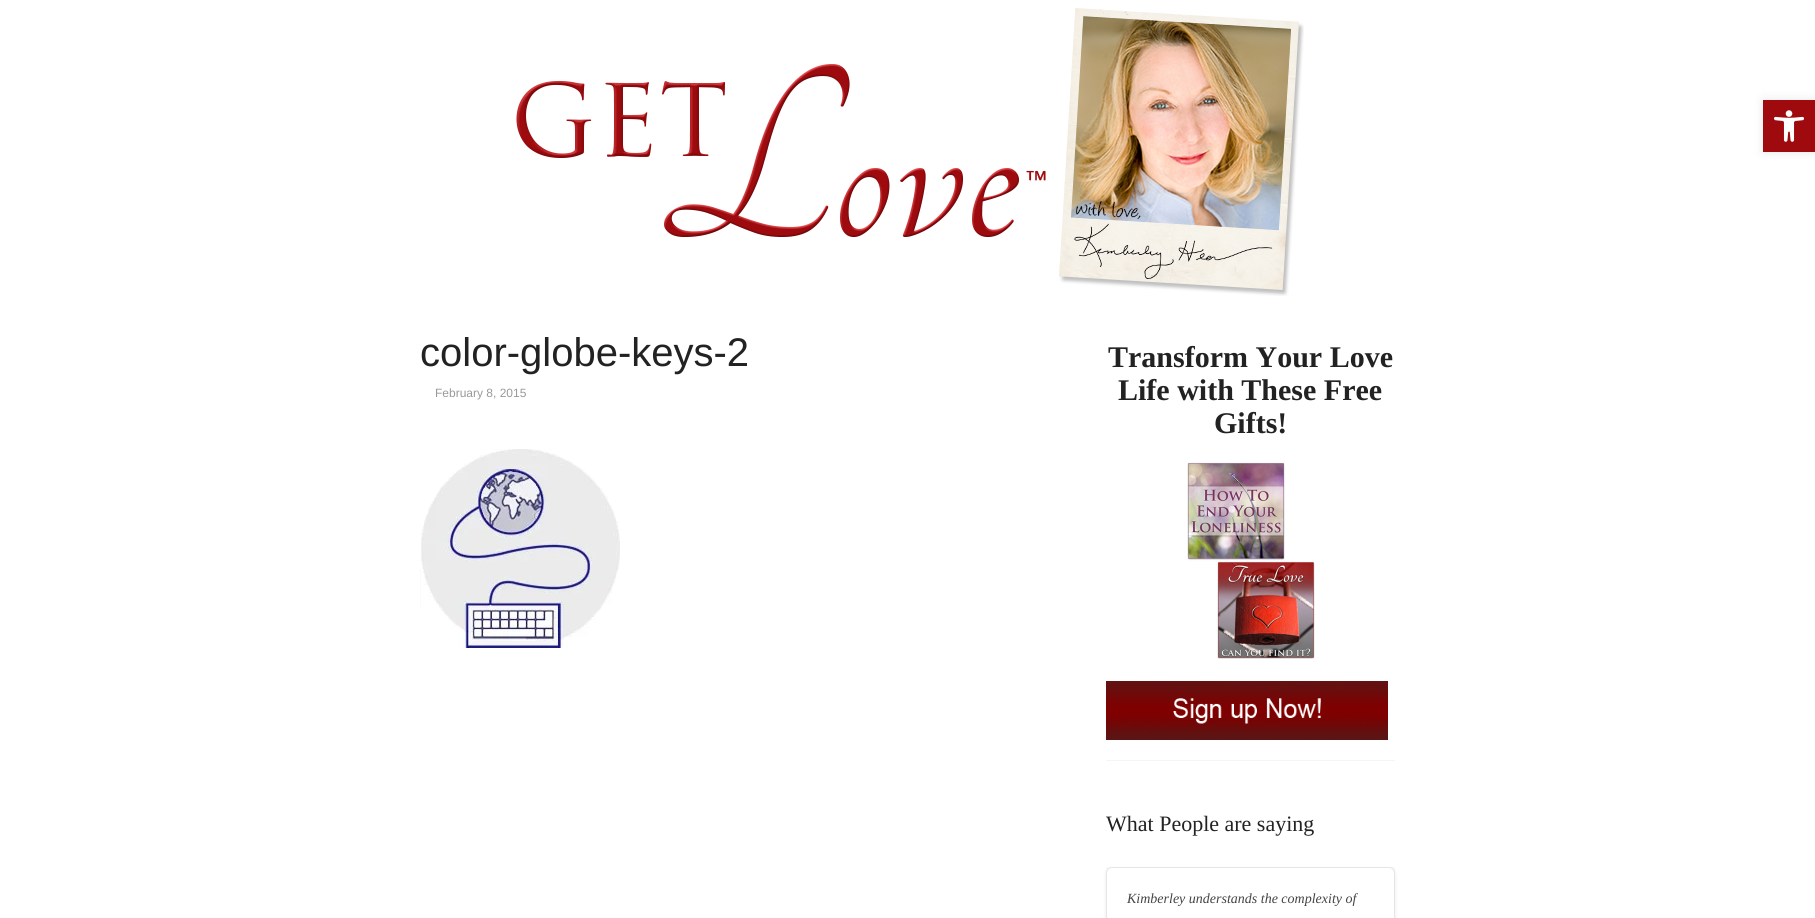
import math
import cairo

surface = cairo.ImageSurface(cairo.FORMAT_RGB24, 1815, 918)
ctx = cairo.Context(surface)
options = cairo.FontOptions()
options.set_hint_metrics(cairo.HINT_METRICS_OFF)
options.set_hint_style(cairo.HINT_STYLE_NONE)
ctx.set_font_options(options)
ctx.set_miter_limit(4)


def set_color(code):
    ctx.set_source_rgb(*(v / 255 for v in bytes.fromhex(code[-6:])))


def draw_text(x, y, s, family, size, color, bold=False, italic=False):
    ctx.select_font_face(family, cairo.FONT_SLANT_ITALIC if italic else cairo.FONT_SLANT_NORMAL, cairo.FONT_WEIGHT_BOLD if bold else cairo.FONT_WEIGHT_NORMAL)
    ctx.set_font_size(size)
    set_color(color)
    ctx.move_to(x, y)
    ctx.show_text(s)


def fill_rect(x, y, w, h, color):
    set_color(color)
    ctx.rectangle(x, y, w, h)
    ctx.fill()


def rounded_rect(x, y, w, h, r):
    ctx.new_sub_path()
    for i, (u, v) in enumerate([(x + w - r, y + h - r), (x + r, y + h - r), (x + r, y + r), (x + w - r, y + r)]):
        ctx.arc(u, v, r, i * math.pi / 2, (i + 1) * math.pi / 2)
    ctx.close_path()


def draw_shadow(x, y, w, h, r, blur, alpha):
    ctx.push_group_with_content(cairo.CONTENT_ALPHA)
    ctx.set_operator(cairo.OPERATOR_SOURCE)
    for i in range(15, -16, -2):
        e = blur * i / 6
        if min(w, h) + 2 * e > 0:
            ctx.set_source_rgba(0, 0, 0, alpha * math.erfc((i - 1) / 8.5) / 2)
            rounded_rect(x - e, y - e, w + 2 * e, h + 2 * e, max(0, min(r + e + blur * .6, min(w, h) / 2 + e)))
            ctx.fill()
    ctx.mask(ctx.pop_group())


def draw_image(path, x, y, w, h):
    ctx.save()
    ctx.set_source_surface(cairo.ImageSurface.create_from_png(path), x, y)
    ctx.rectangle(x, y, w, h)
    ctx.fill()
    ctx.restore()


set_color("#ffffff")
ctx.paint()
set_color("#000000")
draw_shadow(1763, 100, 52, 52, 0, 5, 0.1)
fill_rect(1763, 100, 52, 52, "#9e0a0e")
draw_image("assets/img1.png", 1774, 110, 30, 32)
draw_image("assets/img2.png", 516, 8, 788, 288)
draw_text(420, 366, "color-globe-keys-2", "Liberation Sans", 40, "#222222")
draw_text(435, 397, "February 8, 2015", "Liberation Sans", 12, "#999999")
draw_image("assets/img3.png", 420, 449, 200, 199)
draw_text(1108, 367, "Transform Your Love", "Liberation Serif", 30, "#222222", bold=True)
draw_text(1118, 400, "Life with These Free", "Liberation Serif", 30, "#222222", bold=True)
draw_text(1214, 433, "Gifts!", "Liberation Serif", 30, "#222222", bold=True)
draw_image("assets/img4.png", 1187, 462, 128, 197)
draw_image("assets/img5.png", 1106, 681, 282, 59)
fill_rect(1106, 760, 289, 1, "#f5f5f5")
draw_text(1106, 831, "What People are saying", "Liberation Serif", 22, "#222222")
fill_rect(1106, 867, 289, 6, "#f9f9f9")
set_color("#000000")
draw_shadow(1105, 868, 291, 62, 7, 1.5, 0.05)
set_color("#ffffff")
rounded_rect(1106.5, 867.5, 288, 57, 5.5)
ctx.fill_preserve()
set_color("#e6e6e6")
ctx.set_line_width(1)
ctx.stroke()
draw_text(1127, 903, "Kimberley understands the complexity of", "Liberation Serif", 14, "#444444", italic=True)
surface.write_to_png("output.png")
